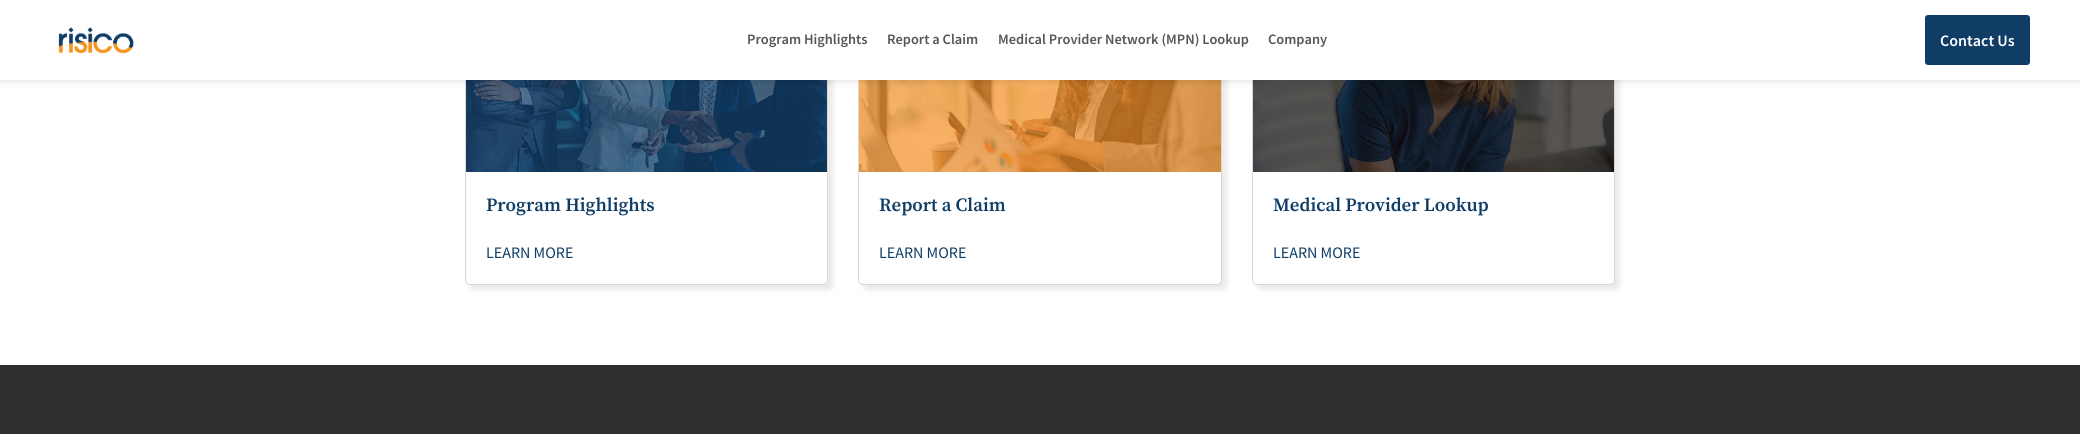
import math
import cairo

surface = cairo.ImageSurface(cairo.FORMAT_RGB24, 2080, 434)
ctx = cairo.Context(surface)
options = cairo.FontOptions()
options.set_hint_metrics(cairo.HINT_METRICS_OFF)
options.set_hint_style(cairo.HINT_STYLE_NONE)
ctx.set_font_options(options)
ctx.set_miter_limit(4)


def set_color(code):
    ctx.set_source_rgb(*(v / 255 for v in bytes.fromhex(code[-6:])))


def draw_text(x, y, s, family, size, color, bold=False, italic=False):
    ctx.select_font_face(family, cairo.FONT_SLANT_ITALIC if italic else cairo.FONT_SLANT_NORMAL, cairo.FONT_WEIGHT_BOLD if bold else cairo.FONT_WEIGHT_NORMAL)
    ctx.set_font_size(size)
    set_color(color)
    ctx.move_to(x, y)
    ctx.show_text(s)


def fill_rect(x, y, w, h, color):
    set_color(color)
    ctx.rectangle(x, y, w, h)
    ctx.fill()


def rounded_rect(x, y, w, h, r):
    ctx.new_sub_path()
    for i, (u, v) in enumerate([(x + w - r, y + h - r), (x + r, y + h - r), (x + r, y + r), (x + w - r, y + r)]):
        ctx.arc(u, v, r, i * math.pi / 2, (i + 1) * math.pi / 2)
    ctx.close_path()


def draw_shadow(x, y, w, h, r, blur, alpha):
    ctx.push_group_with_content(cairo.CONTENT_ALPHA)
    ctx.set_operator(cairo.OPERATOR_SOURCE)
    for i in range(15, -16, -2):
        e = blur * i / 6
        if min(w, h) + 2 * e > 0:
            ctx.set_source_rgba(0, 0, 0, alpha * math.erfc((i - 1) / 8.5) / 2)
            rounded_rect(x - e, y - e, w + 2 * e, h + 2 * e, max(0, min(r + e + blur * .6, min(w, h) / 2 + e)))
            ctx.fill()
    ctx.mask(ctx.pop_group())


def draw_image(path, x, y, w, h):
    ctx.save()
    ctx.set_source_surface(cairo.ImageSurface.create_from_png(path), x, y)
    ctx.rectangle(x, y, w, h)
    ctx.fill()
    ctx.restore()


set_color("#ffffff")
ctx.paint()
set_color("#ebe8e8")
draw_shadow(470, -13, 363, 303, 5, 2.5, 1)
set_color("#ffffff")
rounded_rect(465.5, -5.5, 362, 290, 4.5)
ctx.fill_preserve()
set_color("#d8d8d8")
ctx.set_line_width(1)
ctx.stroke()
draw_image("assets/img2.png", 466, 80, 361, 92)
set_color("#ebe8e8")
draw_shadow(863, -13, 364, 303, 5, 2.5, 1)
set_color("#ffffff")
rounded_rect(858.5, -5.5, 363, 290, 4.5)
ctx.fill_preserve()
set_color("#d8d8d8")
ctx.stroke()
draw_image("assets/img3.png", 859, 80, 362, 92)
set_color("#ebe8e8")
draw_shadow(1257, -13, 363, 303, 5, 2.5, 1)
set_color("#ffffff")
rounded_rect(1252.5, -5.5, 362, 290, 4.5)
ctx.fill_preserve()
set_color("#d8d8d8")
ctx.stroke()
draw_image("assets/img4.png", 1253, 80, 361, 92)
set_color("#000000")
draw_shadow(0, 2, 2080, 80, 0, 3, 0.1)
fill_rect(0, 0, 2080, 80, "#ffffff")
draw_image("assets/img1.png", 58, 27, 76, 27)
draw_text(747, 44, "Program Highlights", "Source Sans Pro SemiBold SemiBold", 14.4, "#555555")
draw_text(887, 44, "Report a Claim", "Source Sans Pro SemiBold SemiBold", 14.4, "#555555")
draw_text(998, 44, "Medical Provider Network (MPN) Lookup", "Source Sans Pro SemiBold SemiBold", 14.4, "#555555")
draw_text(1268, 44, "Company", "Source Sans Pro SemiBold SemiBold", 14.4, "#555555")
set_color("#0f3d66")
rounded_rect(1926, 16, 103, 48, 2)
ctx.fill_preserve()
ctx.set_line_width(2)
ctx.stroke()
draw_text(1940, 46, "Contact Us", "Source Sans Pro SemiBold SemiBold", 16, "#ffffff")
draw_text(486, 211, "Program Highlights", "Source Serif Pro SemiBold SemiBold", 18.75, "#0f3d66")
draw_text(486, 258, "LEARN MORE", "Source Sans Pro", 16, "#0f3d66")
draw_text(879, 211, "Report a Claim", "Source Serif Pro SemiBold SemiBold", 18.75, "#0f3d66")
draw_text(879, 258, "LEARN MORE", "Source Sans Pro", 16, "#0f3d66")
draw_text(1273, 211, "Medical Provider Lookup", "Source Serif Pro SemiBold SemiBold", 18.75, "#0f3d66")
draw_text(1273, 258, "LEARN MORE", "Source Sans Pro", 16, "#0f3d66")
fill_rect(0, 365, 2080, 69, "#2f2f2f")
surface.write_to_png("output.png")
